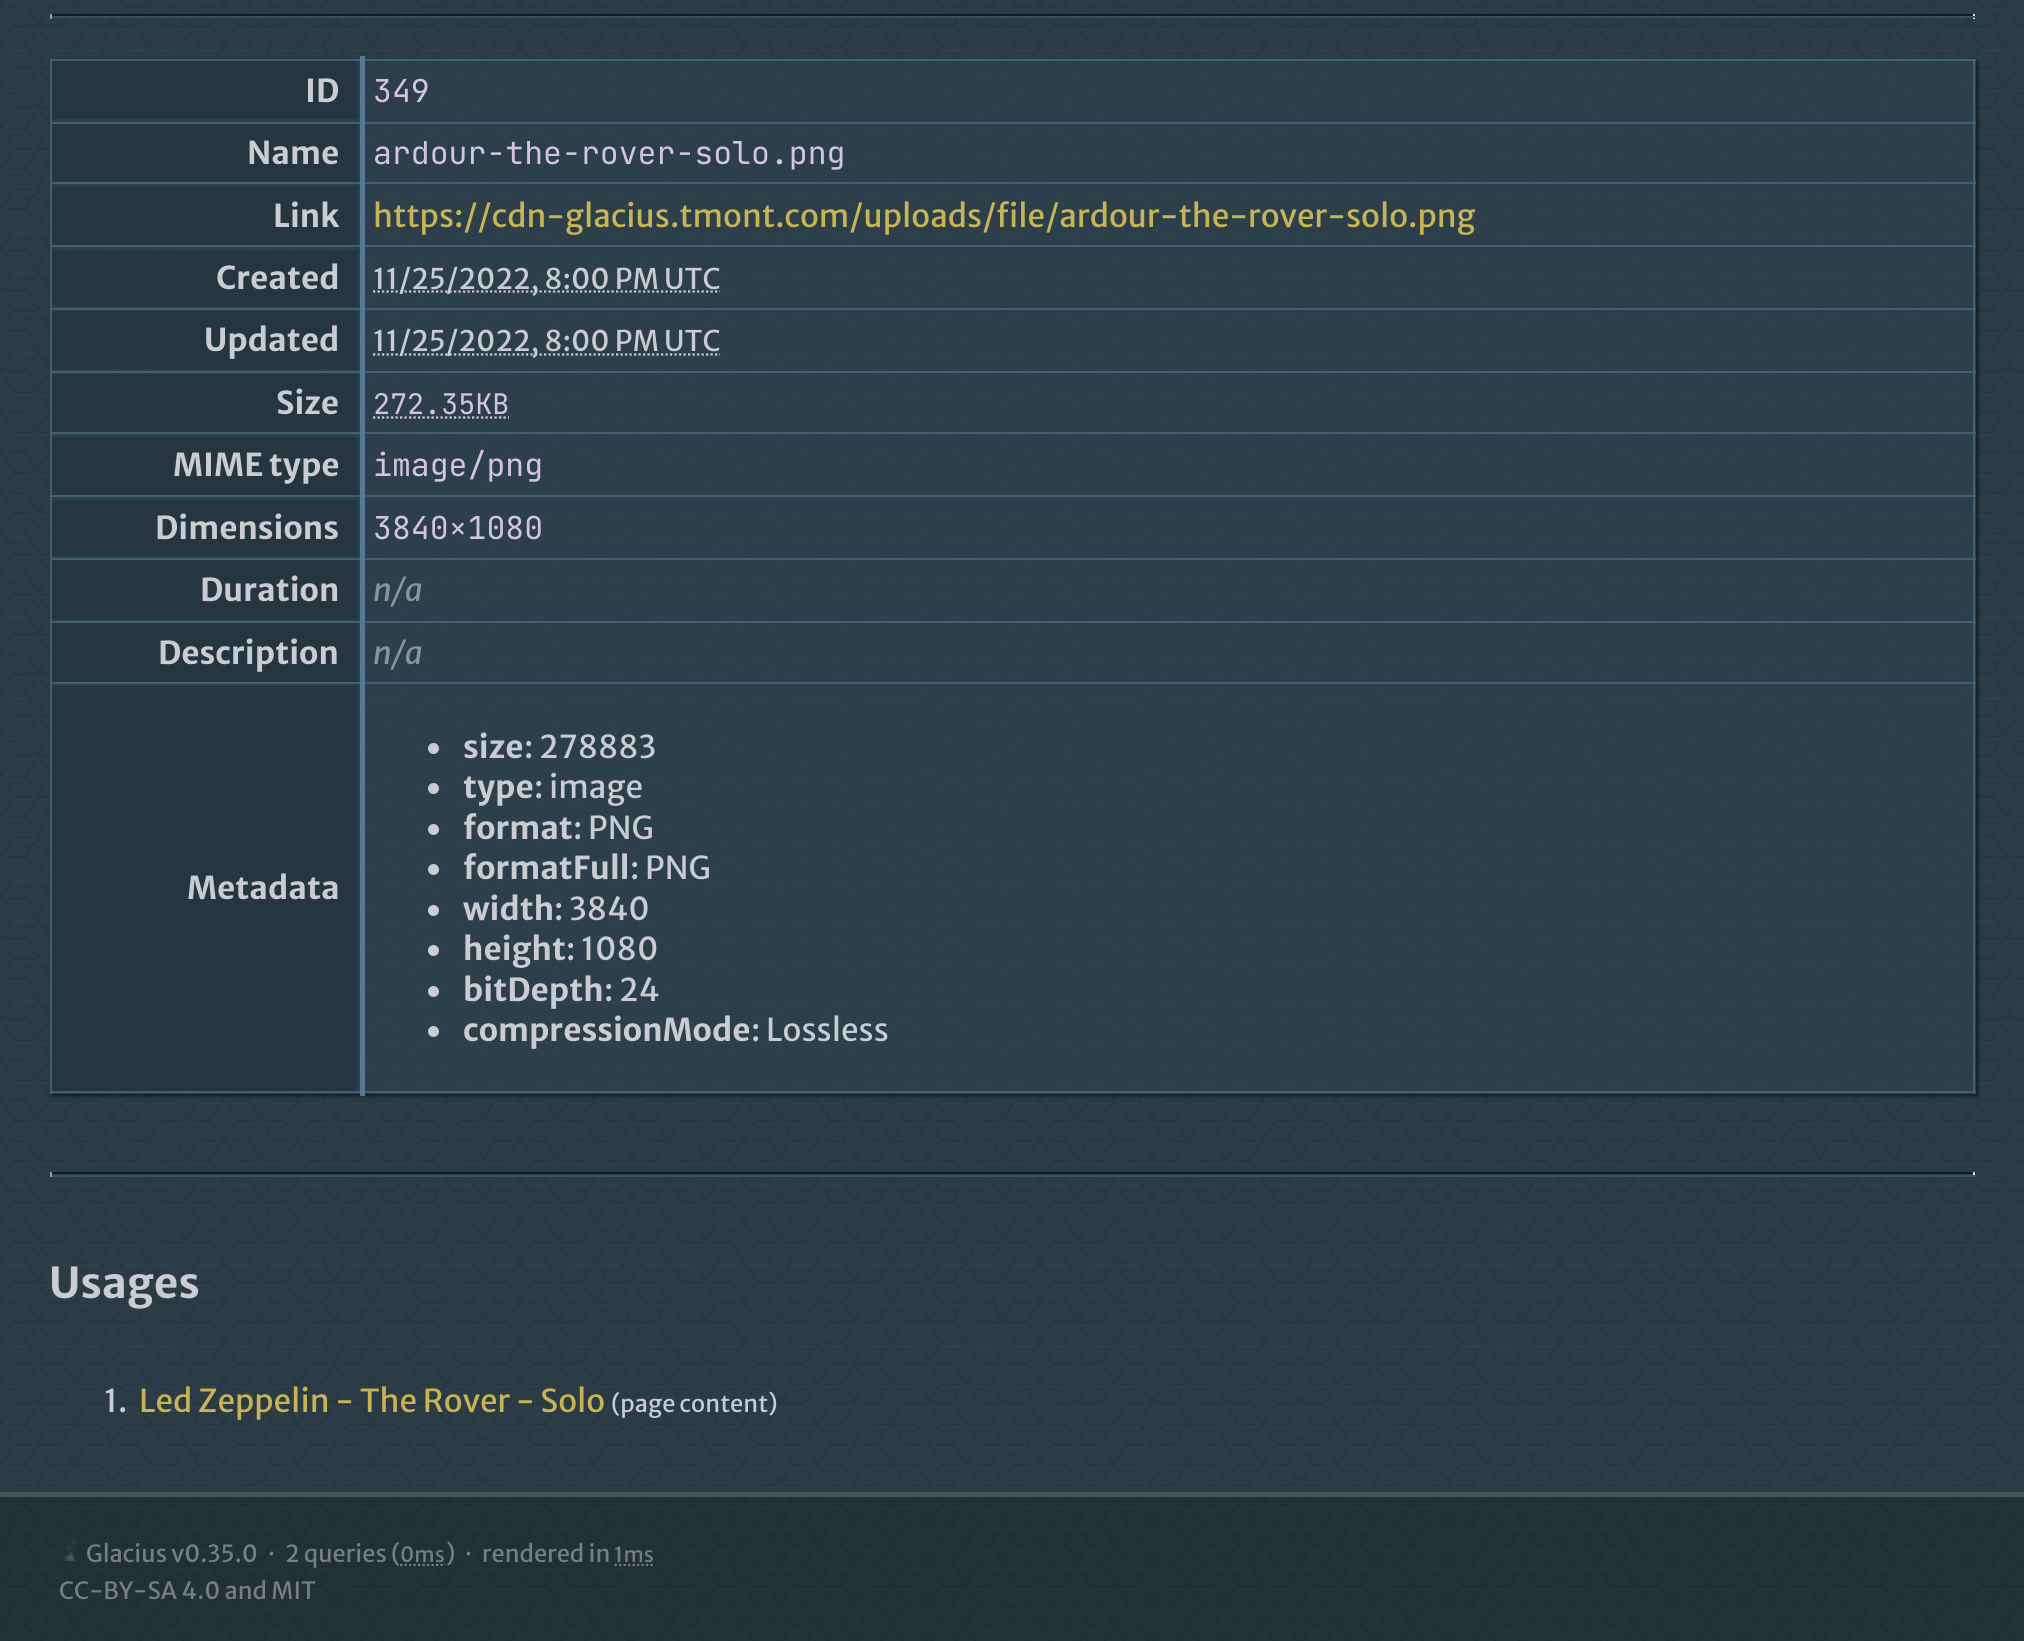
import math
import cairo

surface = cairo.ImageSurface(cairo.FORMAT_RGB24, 2024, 1641)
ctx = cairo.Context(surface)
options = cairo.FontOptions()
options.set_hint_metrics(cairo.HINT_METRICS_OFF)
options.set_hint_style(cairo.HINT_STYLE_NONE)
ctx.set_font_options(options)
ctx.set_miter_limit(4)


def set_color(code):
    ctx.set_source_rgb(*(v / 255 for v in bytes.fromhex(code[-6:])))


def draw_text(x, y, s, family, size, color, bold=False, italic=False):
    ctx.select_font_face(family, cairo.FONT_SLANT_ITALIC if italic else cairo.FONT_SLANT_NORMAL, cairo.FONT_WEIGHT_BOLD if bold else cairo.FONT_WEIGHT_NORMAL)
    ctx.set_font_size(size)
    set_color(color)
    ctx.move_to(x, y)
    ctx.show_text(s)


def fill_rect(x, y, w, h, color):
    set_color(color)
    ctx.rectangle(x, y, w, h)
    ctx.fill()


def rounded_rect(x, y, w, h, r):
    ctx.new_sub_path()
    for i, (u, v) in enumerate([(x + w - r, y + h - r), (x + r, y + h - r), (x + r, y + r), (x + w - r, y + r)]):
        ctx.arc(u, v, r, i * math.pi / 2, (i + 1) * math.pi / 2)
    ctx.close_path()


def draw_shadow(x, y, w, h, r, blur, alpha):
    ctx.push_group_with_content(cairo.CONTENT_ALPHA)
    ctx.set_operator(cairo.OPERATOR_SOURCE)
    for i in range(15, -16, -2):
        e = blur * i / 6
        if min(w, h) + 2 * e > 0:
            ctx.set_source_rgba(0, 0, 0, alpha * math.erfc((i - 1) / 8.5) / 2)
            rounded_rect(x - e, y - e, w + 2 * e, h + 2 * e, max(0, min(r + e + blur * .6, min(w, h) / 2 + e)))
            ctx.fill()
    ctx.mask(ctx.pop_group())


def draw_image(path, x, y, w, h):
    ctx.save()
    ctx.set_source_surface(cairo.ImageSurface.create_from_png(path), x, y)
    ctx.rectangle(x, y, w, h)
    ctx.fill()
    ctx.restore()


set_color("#2e4450")
ctx.paint()
draw_image("assets/img1.png", 0, 0, 2024, 1641)
fill_rect(50, 14, 1926, 2, "#121b1f")
fill_rect(1973, 14, 2, 5, "#eeeeee")
fill_rect(50, 16, 1926, 2, "#375260")
fill_rect(50, 14, 2, 5, "#9f9f9f")
ctx.save()
ctx.set_fill_rule(cairo.FILL_RULE_EVEN_ODD)
ctx.new_path()
ctx.move_to(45, 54)
ctx.line_to(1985, 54)
ctx.line_to(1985, 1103)
ctx.line_to(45, 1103)
ctx.close_path()
ctx.move_to(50, 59)
ctx.line_to(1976, 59)
ctx.line_to(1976, 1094)
ctx.line_to(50, 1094)
ctx.close_path()
ctx.clip()
set_color("#000000")
draw_shadow(52, 61, 1926, 1035, 0, 2, 0.6)
ctx.restore()
ctx.set_source_rgba(0.18, 0.267, 0.314, 0.5)
ctx.rectangle(52, 61, 1924, 1033)
ctx.fill()
fill_rect(52, 61, 306, 58, "#253640")
fill_rect(50, 59, 1926, 2, "#416070")
fill_rect(50, 122, 1926, 2, "#416070")
fill_rect(50, 182, 1926, 2, "#416070")
fill_rect(50, 245, 1926, 2, "#416070")
fill_rect(50, 308, 1926, 2, "#416070")
fill_rect(50, 371, 1926, 2, "#416070")
fill_rect(50, 432, 1926, 2, "#416070")
fill_rect(50, 495, 1926, 2, "#416070")
fill_rect(50, 558, 1926, 2, "#416070")
fill_rect(50, 621, 1926, 2, "#416070")
fill_rect(50, 682, 1926, 2, "#416070")
fill_rect(1973, 682, 2, 412, "#416070")
fill_rect(50, 1091, 1926, 2, "#416070")
fill_rect(50, 682, 2, 412, "#416070")
fill_rect(50, 621, 2, 63, "#416070")
fill_rect(50, 558, 2, 65, "#416070")
fill_rect(50, 495, 2, 65, "#416070")
fill_rect(50, 432, 2, 65, "#416070")
fill_rect(50, 371, 2, 63, "#416070")
fill_rect(50, 308, 2, 66, "#416070")
fill_rect(50, 245, 2, 66, "#416070")
fill_rect(50, 182, 2, 66, "#416070")
fill_rect(50, 122, 2, 63, "#416070")
fill_rect(50, 59, 2, 65, "#416070")
draw_text(305, 102, "ID", "Merriweather Sans", 31.5, "#caccd2", bold=True)
fill_rect(1973, 621, 2, 63, "#416070")
fill_rect(1973, 558, 2, 65, "#416070")
fill_rect(1973, 495, 2, 65, "#416070")
fill_rect(1973, 432, 2, 65, "#416070")
fill_rect(1973, 371, 2, 63, "#416070")
fill_rect(1973, 308, 2, 66, "#416070")
fill_rect(1973, 245, 2, 66, "#416070")
fill_rect(1973, 182, 2, 66, "#416070")
fill_rect(1973, 122, 2, 63, "#416070")
fill_rect(1973, 59, 2, 65, "#416070")
draw_text(373, 102, "349", "JetBrains Mono", 31.5, "#d5c4df")
fill_rect(52, 124, 306, 58, "#253640")
draw_text(247, 164, "Name", "Merriweather Sans", 31.5, "#caccd2", bold=True)
draw_text(373, 164, "ardour-the-rover-solo.png", "JetBrains Mono", 31.5, "#d5c4df")
fill_rect(52, 187, 306, 58, "#253640")
draw_text(273, 227, "Link", "Merriweather Sans", 31.5, "#caccd2", bold=True)
draw_text(373, 227, "https://cdn-glacius.tmont.com/uploads/file/ardour-the-rover-solo.png", "Merriweather Sans", 31.5, "#c9b455")
fill_rect(52, 250, 306, 56, "#253640")
draw_text(216, 289, "Created", "Merriweather Sans", 31.5, "#caccd2", bold=True)
ctx.new_path()
ctx.move_to(373, 291.5)
ctx.line_to(720, 291.5)
ctx.set_line_width(2.2)
ctx.set_dash([2.25, 2.25])
ctx.stroke()
draw_text(373, 289, "11/25/2022, 8:00 PM UTC", "Merriweather Sans", 28.4, "#caccd2")
fill_rect(52, 311, 306, 58, "#253640")
draw_text(204, 351, "Updated", "Merriweather Sans", 31.5, "#caccd2", bold=True)
ctx.new_path()
ctx.move_to(373, 354.5)
ctx.line_to(720, 354.5)
ctx.stroke()
draw_text(373, 351, "11/25/2022, 8:00 PM UTC", "Merriweather Sans", 28.4, "#caccd2")
fill_rect(52, 374, 306, 58, "#253640")
draw_text(276, 414, "Size", "Merriweather Sans", 31.5, "#caccd2", bold=True)
draw_text(373, 414, "272.35KB", "JetBrains Mono", 28.4, "#d5c4df")
ctx.new_path()
ctx.move_to(373, 417.5)
ctx.line_to(509, 417.5)
ctx.stroke()
fill_rect(52, 437, 306, 58, "#253640")
draw_text(173, 476, "MIME type", "Merriweather Sans", 31.5, "#caccd2", bold=True)
draw_text(373, 476, "image/png", "JetBrains Mono", 31.5, "#d5c4df")
fill_rect(52, 500, 306, 56, "#253640")
draw_text(155, 539, "Dimensions", "Merriweather Sans", 31.5, "#caccd2", bold=True)
draw_text(373, 539, "3840×1080", "JetBrains Mono", 31.5, "#d5c4df")
fill_rect(52, 560, 306, 59, "#253640")
draw_text(200, 601, "Duration", "Merriweather Sans", 31.5, "#caccd2", bold=True)
draw_text(373, 601, "n/a", "Merriweather Sans", 31.5, "#8b949c", italic=True)
fill_rect(52, 623, 306, 59, "#253640")
draw_text(158, 664, "Description", "Merriweather Sans", 31.5, "#caccd2", bold=True)
draw_text(373, 664, "n/a", "Merriweather Sans", 31.5, "#8b949c", italic=True)
fill_rect(52, 686, 306, 405, "#253640")
fill_rect(360, 56, 5, 1040, "#537b91")
draw_text(187, 899, "Metadata", "Merriweather Sans", 31.5, "#caccd2", bold=True)
ctx.new_path()
ctx.arc(433.5, 748.5, 5.5, 0, 2 * math.pi)
ctx.fill()
draw_text(463, 758, "size", "Merriweather Sans", 31.5, "#caccd2", bold=True)
draw_text(524, 758, ": 278883", "Merriweather Sans", 31.5, "#caccd2")
ctx.new_path()
ctx.arc(433.5, 788.5, 5.5, 0, 2 * math.pi)
ctx.fill()
draw_text(463, 798, "type", "Merriweather Sans", 31.5, "#caccd2", bold=True)
draw_text(534, 798, ": image", "Merriweather Sans", 31.5, "#caccd2")
ctx.new_path()
ctx.arc(433.5, 829.5, 5.5, 0, 2 * math.pi)
ctx.fill()
draw_text(463, 839, "format", "Merriweather Sans", 31.5, "#caccd2", bold=True)
draw_text(573, 839, ": PNG", "Merriweather Sans", 31.5, "#caccd2")
ctx.new_path()
ctx.arc(433.5, 869.5, 5.5, 0, 2 * math.pi)
ctx.fill()
draw_text(463, 879, "formatFull", "Merriweather Sans", 31.5, "#caccd2", bold=True)
draw_text(630, 879, ": PNG", "Merriweather Sans", 31.5, "#caccd2")
ctx.new_path()
ctx.arc(433.5, 910.5, 5.5, 0, 2 * math.pi)
ctx.fill()
draw_text(463, 920, "width", "Merriweather Sans", 31.5, "#caccd2", bold=True)
draw_text(554, 920, ": 3840", "Merriweather Sans", 31.5, "#caccd2")
ctx.new_path()
ctx.arc(433.5, 950.5, 5.5, 0, 2 * math.pi)
ctx.fill()
draw_text(463, 960, "height", "Merriweather Sans", 31.5, "#caccd2", bold=True)
draw_text(566, 960, ": 1080", "Merriweather Sans", 31.5, "#caccd2")
ctx.new_path()
ctx.arc(433.5, 991.5, 5.5, 0, 2 * math.pi)
ctx.fill()
draw_text(463, 1001, "bitDepth", "Merriweather Sans", 31.5, "#caccd2", bold=True)
draw_text(604, 1001, ": 24", "Merriweather Sans", 31.5, "#caccd2")
ctx.new_path()
ctx.arc(433.5, 1031.5, 5.5, 0, 2 * math.pi)
ctx.fill()
draw_text(463, 1041, "compressionMode", "Merriweather Sans", 31.5, "#caccd2", bold=True)
draw_text(751, 1041, ": Lossless", "Merriweather Sans", 31.5, "#caccd2")
fill_rect(50, 1172, 1926, 2, "#121b1f")
fill_rect(1973, 1172, 2, 5, "#eeeeee")
fill_rect(50, 1175, 1926, 2, "#375260")
fill_rect(50, 1172, 2, 5, "#9f9f9f")
draw_text(49, 1298, "Usages", "Merriweather Sans", 42.5, "#caccd2", bold=True)
draw_text(104, 1412, "1.", "Merriweather Sans", 31.5, "#caccd2")
draw_text(139, 1412, "Led Zeppelin - The Rover - Solo", "Merriweather Sans", 31.5, "#c9b455")
draw_text(611, 1412, "(page content)", "Merriweather Sans", 23.6, "#caccd2")
ctx.set_source_rgba(0.043, 0.047, 0.051, 0.25)
ctx.rectangle(0, 1492, 2024, 149)
ctx.fill()
ctx.set_source_rgba(0.369, 0.404, 0.424, 0.65)
ctx.rectangle(0, 1492, 2024, 5)
ctx.fill()
draw_image("assets/img2.png", 63, 1538, 14, 23)
draw_text(86, 1562, "Glacius v0.35.0", "Merriweather Sans", 23.6, "#777d88")
draw_text(268, 1562, "·", "Merriweather Sans", 23.6, "#777d88")
draw_text(285, 1562, "2 queries (", "Merriweather Sans", 23.6, "#777d88")
draw_text(400, 1562, "0ms", "Merriweather Sans", 21, "#777d88")
ctx.new_path()
ctx.move_to(400, 1565)
ctx.line_to(445.5, 1565)
ctx.set_source_rgba(0.576, 0.592, 0.639, 0.75)
ctx.stroke()
draw_text(446, 1562, ")", "Merriweather Sans", 23.6, "#777d88")
draw_text(465, 1562, "·", "Merriweather Sans", 23.6, "#777d88")
draw_text(482, 1562, "rendered in", "Merriweather Sans", 23.6, "#777d88")
draw_text(614, 1562, "1ms", "Merriweather Sans", 21, "#777d88")
ctx.new_path()
ctx.move_to(614.5, 1565)
ctx.line_to(654.5, 1565)
ctx.set_source_rgba(0.576, 0.592, 0.639, 0.75)
ctx.stroke()
draw_text(59, 1599, "CC-BY-SA 4.0 and MIT", "Merriweather Sans", 23.6, "#777d88")
surface.write_to_png("output.png")
